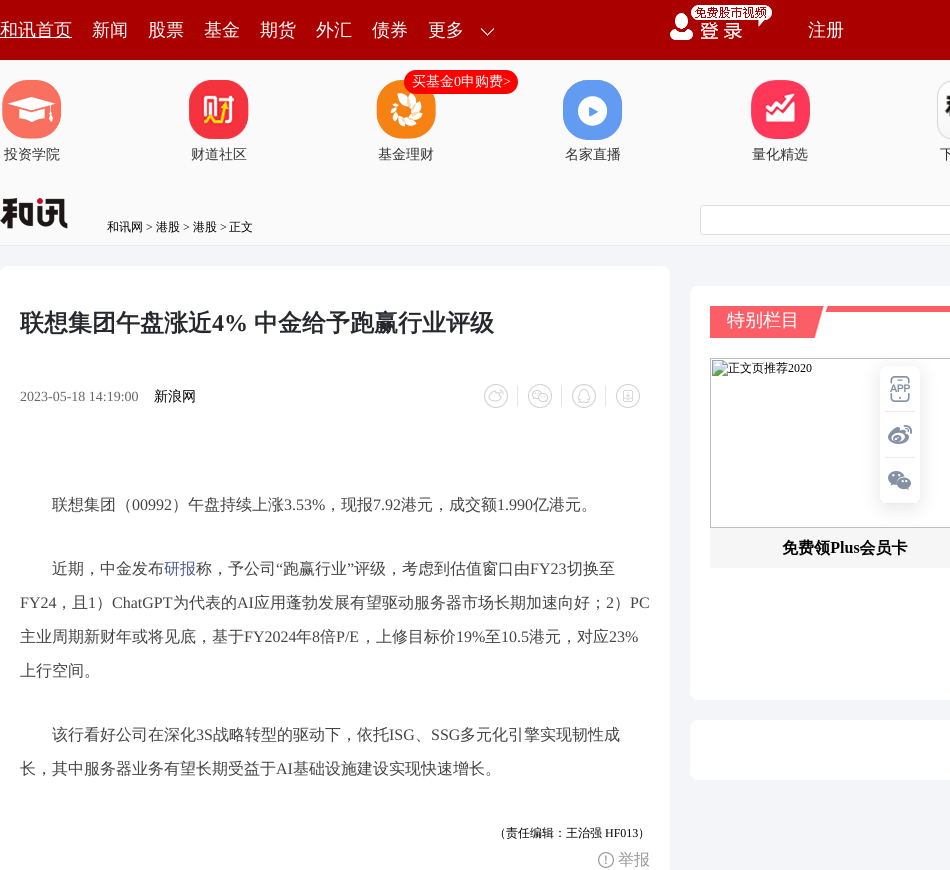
import math
import cairo

surface = cairo.ImageSurface(cairo.FORMAT_RGB24, 950, 870)
ctx = cairo.Context(surface)
options = cairo.FontOptions()
options.set_hint_metrics(cairo.HINT_METRICS_OFF)
options.set_hint_style(cairo.HINT_STYLE_NONE)
ctx.set_font_options(options)
ctx.set_miter_limit(4)


def set_color(code):
    ctx.set_source_rgb(*(v / 255 for v in bytes.fromhex(code[-6:])))


def draw_text(x, y, s, family, size, color, bold=False, italic=False):
    ctx.select_font_face(family, cairo.FONT_SLANT_ITALIC if italic else cairo.FONT_SLANT_NORMAL, cairo.FONT_WEIGHT_BOLD if bold else cairo.FONT_WEIGHT_NORMAL)
    ctx.set_font_size(size)
    set_color(color)
    ctx.move_to(x, y)
    ctx.show_text(s)


def fill_rect(x, y, w, h, color):
    set_color(color)
    ctx.rectangle(x, y, w, h)
    ctx.fill()


def rounded_rect(x, y, w, h, r):
    ctx.new_sub_path()
    for i, (u, v) in enumerate([(x + w - r, y + h - r), (x + r, y + h - r), (x + r, y + r), (x + w - r, y + r)]):
        ctx.arc(u, v, r, i * math.pi / 2, (i + 1) * math.pi / 2)
    ctx.close_path()


def draw_shadow(x, y, w, h, r, blur, alpha):
    ctx.push_group_with_content(cairo.CONTENT_ALPHA)
    ctx.set_operator(cairo.OPERATOR_SOURCE)
    for i in range(15, -16, -2):
        e = blur * i / 6
        if min(w, h) + 2 * e > 0:
            ctx.set_source_rgba(0, 0, 0, alpha * math.erfc((i - 1) / 8.5) / 2)
            rounded_rect(x - e, y - e, w + 2 * e, h + 2 * e, max(0, min(r + e + blur * .6, min(w, h) / 2 + e)))
            ctx.fill()
    ctx.mask(ctx.pop_group())


def draw_image(path, x, y, w, h):
    ctx.save()
    ctx.set_source_surface(cairo.ImageSurface.create_from_png(path), x, y)
    ctx.rectangle(x, y, w, h)
    ctx.fill()
    ctx.restore()


set_color("#fafafa")
ctx.paint()
fill_rect(0, 0, 950, 60, "#aa0000")
fill_rect(0, 37, 72, 1, "#ffffff")
draw_text(0, 36, "和讯首页", "WenQuanYi Zen Hei Medium", 18, "#ffffff")
draw_text(92, 36, "新闻", "WenQuanYi Zen Hei Medium", 18, "#ffffff")
draw_text(148, 36, "股票", "WenQuanYi Zen Hei Medium", 18, "#ffffff")
draw_text(204, 36, "基金", "WenQuanYi Zen Hei Medium", 18, "#ffffff")
draw_text(260, 36, "期货", "WenQuanYi Zen Hei Medium", 18, "#ffffff")
draw_text(316, 36, "外汇", "WenQuanYi Zen Hei Medium", 18, "#ffffff")
draw_text(372, 36, "债券", "WenQuanYi Zen Hei Medium", 18, "#ffffff")
draw_image("assets/img1.png", 481, 28, 13, 8)
draw_text(428, 36, "更多", "WenQuanYi Zen Hei Medium", 18, "#ffffff")
draw_image("assets/img2.png", 670, 5, 102, 35)
draw_text(808, 36, "注册", "WenQuanYi Zen Hei Medium", 18, "#ffffff")
fill_rect(0, 245, 950, 1, "#eeeeee")
draw_image("assets/img3.png", 2, 80, 60, 59)
draw_text(4, 159, "投资学院", "WenQuanYi Zen Hei Medium", 14, "#333333")
draw_image("assets/img4.png", 189, 80, 60, 59)
draw_text(191, 159, "财道社区", "WenQuanYi Zen Hei Medium", 14, "#333333")
draw_image("assets/img5.png", 376, 80, 60, 59)
set_color("#ff0000")
rounded_rect(404, 70, 114, 24, 12)
ctx.fill()
draw_text(412, 86, "买基金", "WenQuanYi Zen Hei Medium", 14, "#ffffff")
draw_text(454, 86, "0", "Liberation Serif", 14, "#ffffff")
draw_text(461, 86, "申购费", "WenQuanYi Zen Hei Medium", 14, "#ffffff")
draw_text(503, 86, ">", "Liberation Serif", 14, "#ffffff")
draw_text(378, 159, "基金理财", "WenQuanYi Zen Hei Medium", 14, "#333333")
draw_image("assets/img6.png", 563, 80, 60, 60)
draw_text(565, 159, "名家直播", "WenQuanYi Zen Hei Medium", 14, "#333333")
draw_image("assets/img7.png", 751, 80, 59, 59)
draw_text(752, 159, "量化精选", "WenQuanYi Zen Hei Medium", 14, "#333333")
draw_image("assets/img8.png", 937, 80, 13, 60)
draw_text(940, 159, "下", "WenQuanYi Zen Hei Medium", 14, "#333333")
draw_image("assets/img9.png", 0, 198, 68, 31)
draw_text(107, 231, "和讯网", "WenQuanYi Zen Hei Medium", 12, "#000000")
draw_text(146, 231, ">", "Liberation Serif", 12, "#000000")
draw_text(156, 231, "港股", "WenQuanYi Zen Hei Medium", 12, "#000000")
draw_text(183, 231, ">", "Liberation Serif", 12, "#000000")
draw_text(193, 231, "港股", "WenQuanYi Zen Hei Medium", 12, "#000000")
draw_text(220, 231, ">", "Liberation Serif", 12, "#000000")
draw_text(229, 231, "正文", "WenQuanYi Zen Hei Medium", 12, "#000000")
rounded_rect(700.5, 205.5, 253, 29, 2.5)
set_color("#dddddd")
ctx.set_line_width(1)
ctx.stroke()
set_color("#ffffff")
ctx.new_path()
ctx.move_to(703, 206)
ctx.line_to(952, 206)
ctx.line_to(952, 234)
ctx.line_to(703, 234)
ctx.curve_to(702, 234, 701, 233, 701, 232)
ctx.line_to(701, 208)
ctx.curve_to(701, 207, 702, 206, 703, 206)
ctx.close_path()
ctx.fill()
fill_rect(0, 246, 950, 624, "#f4f5f9")
set_color("#ffffff")
rounded_rect(0, 266, 670, 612, 8)
ctx.fill()
draw_text(20, 331, "联想集团午盘涨近", "WenQuanYi Zen Hei", 24, "#27282d", bold=True)
draw_text(212, 331, "4%", "Liberation Serif", 24, "#27282d", bold=True)
draw_text(254, 331, "中金给予跑赢行业评级", "WenQuanYi Zen Hei", 24, "#27282d", bold=True)
draw_text(20, 401, "2023-05-18 14:19:00", "Liberation Serif", 14, "#666666")
draw_text(154, 401, "新浪网", "WenQuanYi Zen Hei Medium", 14, "#000000")
draw_image("assets/img10.png", 484, 384, 24, 24)
fill_rect(517, 386, 1, 20, "#e5e5e5")
draw_image("assets/img11.png", 528, 384, 24, 24)
fill_rect(561, 386, 1, 20, "#e5e5e5")
draw_image("assets/img12.png", 572, 384, 24, 24)
fill_rect(605, 386, 1, 20, "#e5e5e5")
draw_image("assets/img13.png", 616, 384, 24, 24)
draw_text(52, 510, "联想集团（", "WenQuanYi Zen Hei Medium", 16, "#444444")
draw_text(132, 510, "00992", "Liberation Serif", 16, "#444444")
draw_text(172, 510, "）午盘持续上涨", "WenQuanYi Zen Hei Medium", 16, "#444444")
draw_text(284, 510, "3.53%", "Liberation Serif", 16, "#444444")
draw_text(325, 510, "，现报", "WenQuanYi Zen Hei Medium", 16, "#444444")
draw_text(373, 510, "7.92", "Liberation Serif", 16, "#444444")
draw_text(401, 510, "港元，成交额", "WenQuanYi Zen Hei Medium", 16, "#444444")
draw_text(497, 510, "1.990", "Liberation Serif", 16, "#444444")
draw_text(533, 510, "亿港元。", "WenQuanYi Zen Hei Medium", 16, "#444444")
draw_text(52, 574, "近期，中金发布", "WenQuanYi Zen Hei Medium", 16, "#444444")
draw_text(164, 574, "研报", "WenQuanYi Zen Hei Medium", 16, "#485a90")
draw_text(196, 574, "称，予公司", "WenQuanYi Zen Hei Medium", 16, "#444444")
draw_text(276, 574, "“", "Liberation Serif", 16, "#444444")
draw_text(283, 574, "跑赢行业", "WenQuanYi Zen Hei Medium", 16, "#444444")
draw_text(347, 574, "”", "Liberation Serif", 16, "#444444")
draw_text(354, 574, "评级，考虑到估值窗口由", "WenQuanYi Zen Hei Medium", 16, "#444444")
draw_text(530, 574, "FY23", "Liberation Serif", 16, "#444444")
draw_text(567, 574, "切换至", "WenQuanYi Zen Hei Medium", 16, "#444444")
draw_text(20, 608, "FY24", "Liberation Serif", 16, "#444444")
draw_text(56, 608, "，且", "WenQuanYi Zen Hei Medium", 16, "#444444")
draw_text(88, 608, "1", "Liberation Serif", 16, "#444444")
draw_text(96, 608, "）", "WenQuanYi Zen Hei Medium", 16, "#444444")
draw_text(112, 608, "ChatGPT", "Liberation Serif", 16, "#444444")
draw_text(173, 608, "为代表的", "WenQuanYi Zen Hei Medium", 16, "#444444")
draw_text(237, 608, "AI", "Liberation Serif", 16, "#444444")
draw_text(254, 608, "应用蓬勃发展有望驱动服务器市场长期加速向好；", "WenQuanYi Zen Hei Medium", 16, "#444444")
draw_text(606, 608, "2", "Liberation Serif", 16, "#444444")
draw_text(614, 608, "）", "WenQuanYi Zen Hei Medium", 16, "#444444")
draw_text(630, 608, "PC", "Liberation Serif", 16, "#444444")
draw_text(20, 642, "主业周期新财年或将见底，基于", "WenQuanYi Zen Hei Medium", 16, "#444444")
draw_text(244, 642, "FY2024", "Liberation Serif", 16, "#444444")
draw_text(296, 642, "年", "WenQuanYi Zen Hei Medium", 16, "#444444")
draw_text(312, 642, "8", "Liberation Serif", 16, "#444444")
draw_text(320, 642, "倍", "WenQuanYi Zen Hei Medium", 16, "#444444")
draw_text(336, 642, "P/E", "Liberation Serif", 16, "#444444")
draw_text(360, 642, "，上修目标价", "WenQuanYi Zen Hei Medium", 16, "#444444")
draw_text(456, 642, "19%", "Liberation Serif", 16, "#444444")
draw_text(485, 642, "至", "WenQuanYi Zen Hei Medium", 16, "#444444")
draw_text(501, 642, "10.5", "Liberation Serif", 16, "#444444")
draw_text(529, 642, "港元，对应", "WenQuanYi Zen Hei Medium", 16, "#444444")
draw_text(609, 642, "23%", "Liberation Serif", 16, "#444444")
draw_text(20, 676, "上行空间。", "WenQuanYi Zen Hei Medium", 16, "#444444")
draw_text(52, 740, "该行看好公司在深化", "WenQuanYi Zen Hei Medium", 16, "#444444")
draw_text(196, 740, "3S", "Liberation Serif", 16, "#444444")
draw_text(213, 740, "战略转型的驱动下，依托", "WenQuanYi Zen Hei Medium", 16, "#444444")
draw_text(389, 740, "ISG", "Liberation Serif", 16, "#444444")
draw_text(415, 740, "、", "WenQuanYi Zen Hei Medium", 16, "#444444")
draw_text(431, 740, "SSG", "Liberation Serif", 16, "#444444")
draw_text(460, 740, "多元化引擎实现韧性成", "WenQuanYi Zen Hei Medium", 16, "#444444")
draw_text(20, 774, "长，其中服务器业务有望长期受益于", "WenQuanYi Zen Hei Medium", 16, "#444444")
draw_text(276, 774, "AI", "Liberation Serif", 16, "#444444")
draw_text(293, 774, "基础设施建设实现快速增长。", "WenQuanYi Zen Hei Medium", 16, "#444444")
draw_text(494, 837, "（责任编辑：王治强", "WenQuanYi Zen Hei Medium", 12, "#000000")
draw_text(605, 837, "HF013", "Liberation Serif", 12, "#000000")
draw_text(638, 837, "）", "WenQuanYi Zen Hei Medium", 12, "#000000")
draw_image("assets/img14.png", 598, 852, 16, 16)
draw_text(618, 865, "举报", "WenQuanYi Zen Hei Medium", 16, "#999999")
set_color("#ffffff")
ctx.new_path()
ctx.move_to(698, 286)
ctx.line_to(950, 286)
ctx.line_to(950, 700)
ctx.line_to(698, 700)
ctx.curve_to(693.5, 700, 690, 696.5, 690, 692)
ctx.line_to(690, 294)
ctx.curve_to(690, 289.5, 693.5, 286, 698, 286)
ctx.close_path()
ctx.fill()
draw_image("assets/img15.png", 710, 306, 240, 262)
ctx.new_path()
ctx.move_to(698, 720)
ctx.line_to(950, 720)
ctx.line_to(950, 780)
ctx.line_to(698, 780)
ctx.curve_to(693.5, 780, 690, 776.5, 690, 772)
ctx.line_to(690, 728)
ctx.curve_to(690, 723.5, 693.5, 720, 698, 720)
ctx.close_path()
ctx.fill()
set_color("#000000")
draw_shadow(880, 370, 40, 138, 8, 10, 0.1)
set_color("#ffffff")
rounded_rect(880, 366, 40, 138, 8)
ctx.fill()
draw_image("assets/img16.png", 890, 376, 20, 26)
fill_rect(885, 411, 30, 1, "#ebeced")
draw_image("assets/img17.png", 888, 425, 24, 19)
fill_rect(885, 457, 30, 1, "#ebeced")
draw_image("assets/img18.png", 888, 471, 23, 19)
fill_rect(885, 503, 30, 1, "#ebeced")
surface.write_to_png("output.png")
